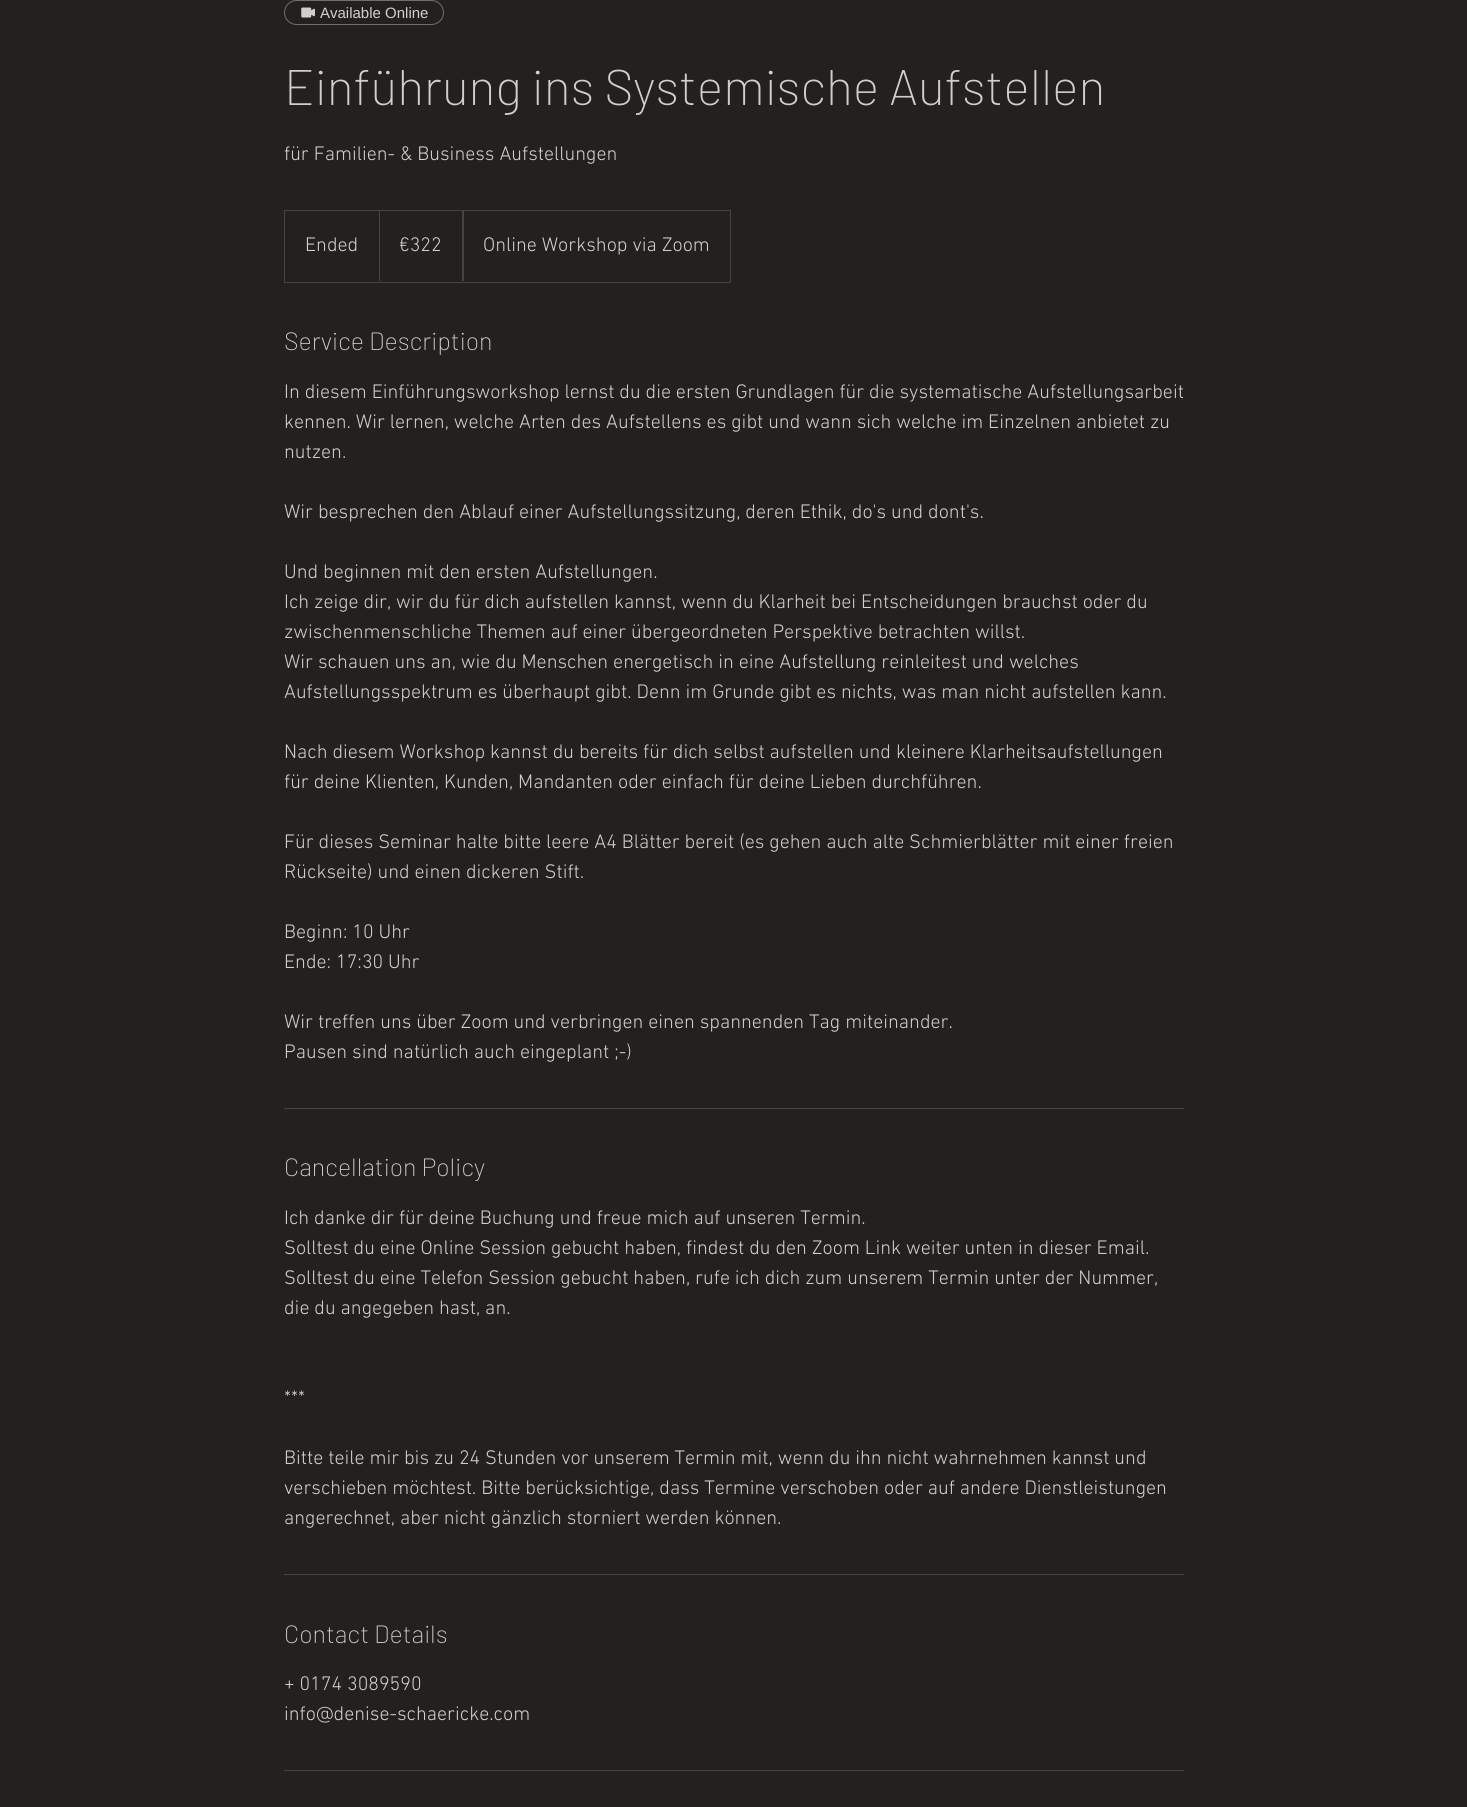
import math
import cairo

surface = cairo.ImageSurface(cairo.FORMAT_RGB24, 1467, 1807)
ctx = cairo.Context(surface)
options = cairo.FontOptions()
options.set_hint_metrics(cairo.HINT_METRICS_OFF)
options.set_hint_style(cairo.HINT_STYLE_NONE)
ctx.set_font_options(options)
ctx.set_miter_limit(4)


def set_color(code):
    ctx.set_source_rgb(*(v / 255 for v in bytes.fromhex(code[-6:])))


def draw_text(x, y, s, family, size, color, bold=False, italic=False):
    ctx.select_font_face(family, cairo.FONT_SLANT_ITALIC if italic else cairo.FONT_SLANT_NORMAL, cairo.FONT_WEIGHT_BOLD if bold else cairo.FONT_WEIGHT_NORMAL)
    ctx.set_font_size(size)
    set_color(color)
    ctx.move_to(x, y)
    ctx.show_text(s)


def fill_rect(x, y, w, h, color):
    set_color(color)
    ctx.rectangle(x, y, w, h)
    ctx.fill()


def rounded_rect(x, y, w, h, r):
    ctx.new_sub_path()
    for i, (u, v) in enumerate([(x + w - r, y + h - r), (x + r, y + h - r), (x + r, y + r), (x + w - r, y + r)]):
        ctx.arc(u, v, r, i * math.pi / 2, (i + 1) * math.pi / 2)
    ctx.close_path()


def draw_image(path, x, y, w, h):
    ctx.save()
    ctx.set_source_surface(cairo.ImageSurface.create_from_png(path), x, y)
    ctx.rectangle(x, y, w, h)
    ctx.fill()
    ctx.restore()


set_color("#222120")
ctx.paint()
rounded_rect(284.5, 0.5, 159, 24, 12)
set_color("#706f6e")
ctx.set_line_width(1)
ctx.stroke()
draw_image("assets/img1.png", 301, 7, 14, 11)
draw_text(320, 18, "Available Online", "Liberation Sans", 15, "#d0cfcd")
draw_text(284, 105, "Einführung ins Systemische Aufstellen", "Barlow ExtraLight", 50, "#d0cfcd")
draw_text(284, 160, "für Familien- & Business Aufstellungen", "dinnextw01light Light", 20, "#d0cfcd")
ctx.rectangle(284.5, 210.5, 446, 72)
set_color("#454443")
ctx.stroke()
draw_text(305, 251, "Ended", "dinnextw01light Light", 20, "#d0cfcd")
set_color("#454443")
ctx.new_path()
ctx.move_to(379, 281)
ctx.line_to(379, 210)
ctx.line_to(380, 211)
ctx.line_to(380, 281)
ctx.close_path()
ctx.fill()
draw_text(399, 251, "€322", "dinnextw01light Light", 20, "#d0cfcd")
set_color("#454443")
ctx.new_path()
ctx.move_to(462, 281)
ctx.line_to(462, 210)
ctx.line_to(464, 211)
ctx.line_to(464, 281)
ctx.close_path()
ctx.fill()
draw_text(483, 251, "Online Workshop via Zoom", "dinnextw01light Light", 20, "#d0cfcd")
draw_text(284, 350, "Service Description", "Barlow ExtraLight", 25, "#d0cfcd")
draw_text(284, 398, "In diesem Einführungsworkshop lernst du die ersten Grundlagen für die systematische Aufstellungsarbeit", "dinnextw01light Light", 20, "#d0cfcd")
draw_text(284, 428, "kennen. Wir lernen, welche Arten des Aufstellens es gibt und wann sich welche im Einzelnen anbietet zu", "dinnextw01light Light", 20, "#d0cfcd")
draw_text(284, 458, "nutzen.", "dinnextw01light Light", 20, "#d0cfcd")
draw_text(284, 518, "Wir besprechen den Ablauf einer Aufstellungssitzung, deren Ethik, do's und dont's.", "dinnextw01light Light", 20, "#d0cfcd")
draw_text(284, 578, "Und beginnen mit den ersten Aufstellungen.", "dinnextw01light Light", 20, "#d0cfcd")
draw_text(284, 608, "Ich zeige dir, wir du für dich aufstellen kannst, wenn du Klarheit bei Entscheidungen brauchst oder du", "dinnextw01light Light", 20, "#d0cfcd")
draw_text(284, 638, "zwischenmenschliche Themen auf einer übergeordneten Perspektive betrachten willst.", "dinnextw01light Light", 20, "#d0cfcd")
draw_text(284, 668, "Wir schauen uns an, wie du Menschen energetisch in eine Aufstellung reinleitest und welches", "dinnextw01light Light", 20, "#d0cfcd")
draw_text(284, 698, "Aufstellungsspektrum es überhaupt gibt. Denn im Grunde gibt es nichts, was man nicht aufstellen kann.", "dinnextw01light Light", 20, "#d0cfcd")
draw_text(284, 758, "Nach diesem Workshop kannst du bereits für dich selbst aufstellen und kleinere Klarheitsaufstellungen", "dinnextw01light Light", 20, "#d0cfcd")
draw_text(284, 788, "für deine Klienten, Kunden, Mandanten oder einfach für deine Lieben durchführen.", "dinnextw01light Light", 20, "#d0cfcd")
draw_text(284, 848, "Für dieses Seminar halte bitte leere A4 Blätter bereit (es gehen auch alte Schmierblätter mit einer freien", "dinnextw01light Light", 20, "#d0cfcd")
draw_text(284, 878, "Rückseite) und einen dickeren Stift.", "dinnextw01light Light", 20, "#d0cfcd")
draw_text(284, 938, "Beginn: 10 Uhr", "dinnextw01light Light", 20, "#d0cfcd")
draw_text(284, 968, "Ende: 17:30 Uhr", "dinnextw01light Light", 20, "#d0cfcd")
draw_text(284, 1028, "Wir treffen uns über Zoom und verbringen einen spannenden Tag miteinander.", "dinnextw01light Light", 20, "#d0cfcd")
draw_text(284, 1058, "Pausen sind natürlich auch eingeplant ;-)", "dinnextw01light Light", 20, "#d0cfcd")
fill_rect(284, 1108, 900, 1, "#454443")
draw_text(284, 1176, "Cancellation Policy", "Barlow ExtraLight", 25, "#d0cfcd")
draw_text(284, 1224, "Ich danke dir für deine Buchung und freue mich auf unseren Termin.", "dinnextw01light Light", 20, "#d0cfcd")
draw_text(284, 1254, "Solltest du eine Online Session gebucht haben, findest du den Zoom Link weiter unten in dieser Email.", "dinnextw01light Light", 20, "#d0cfcd")
draw_text(284, 1284, "Solltest du eine Telefon Session gebucht haben, rufe ich dich zum unserem Termin unter der Nummer,", "dinnextw01light Light", 20, "#d0cfcd")
draw_text(284, 1314, "die du angegeben hast, an.", "dinnextw01light Light", 20, "#d0cfcd")
draw_text(284, 1404, "***", "dinnextw01light Light", 20, "#d0cfcd")
draw_text(284, 1464, "Bitte teile mir bis zu 24 Stunden vor unserem Termin mit, wenn du ihn nicht wahrnehmen kannst und", "dinnextw01light Light", 20, "#d0cfcd")
draw_text(284, 1494, "verschieben möchtest. Bitte berücksichtige, dass Termine verschoben oder auf andere Dienstleistungen", "dinnextw01light Light", 20, "#d0cfcd")
draw_text(284, 1524, "angerechnet, aber nicht gänzlich storniert werden können.", "dinnextw01light Light", 20, "#d0cfcd")
fill_rect(284, 1574, 900, 1, "#454443")
draw_text(284, 1643, "Contact Details", "Barlow ExtraLight", 25, "#d0cfcd")
draw_text(284, 1690, "+ 0174 3089590", "dinnextw01light Light", 20, "#d0cfcd")
draw_text(284, 1720, "info@denise-schaericke.com", "dinnextw01light Light", 20, "#d0cfcd")
fill_rect(284, 1770, 900, 1, "#454443")
surface.write_to_png("output.png")
